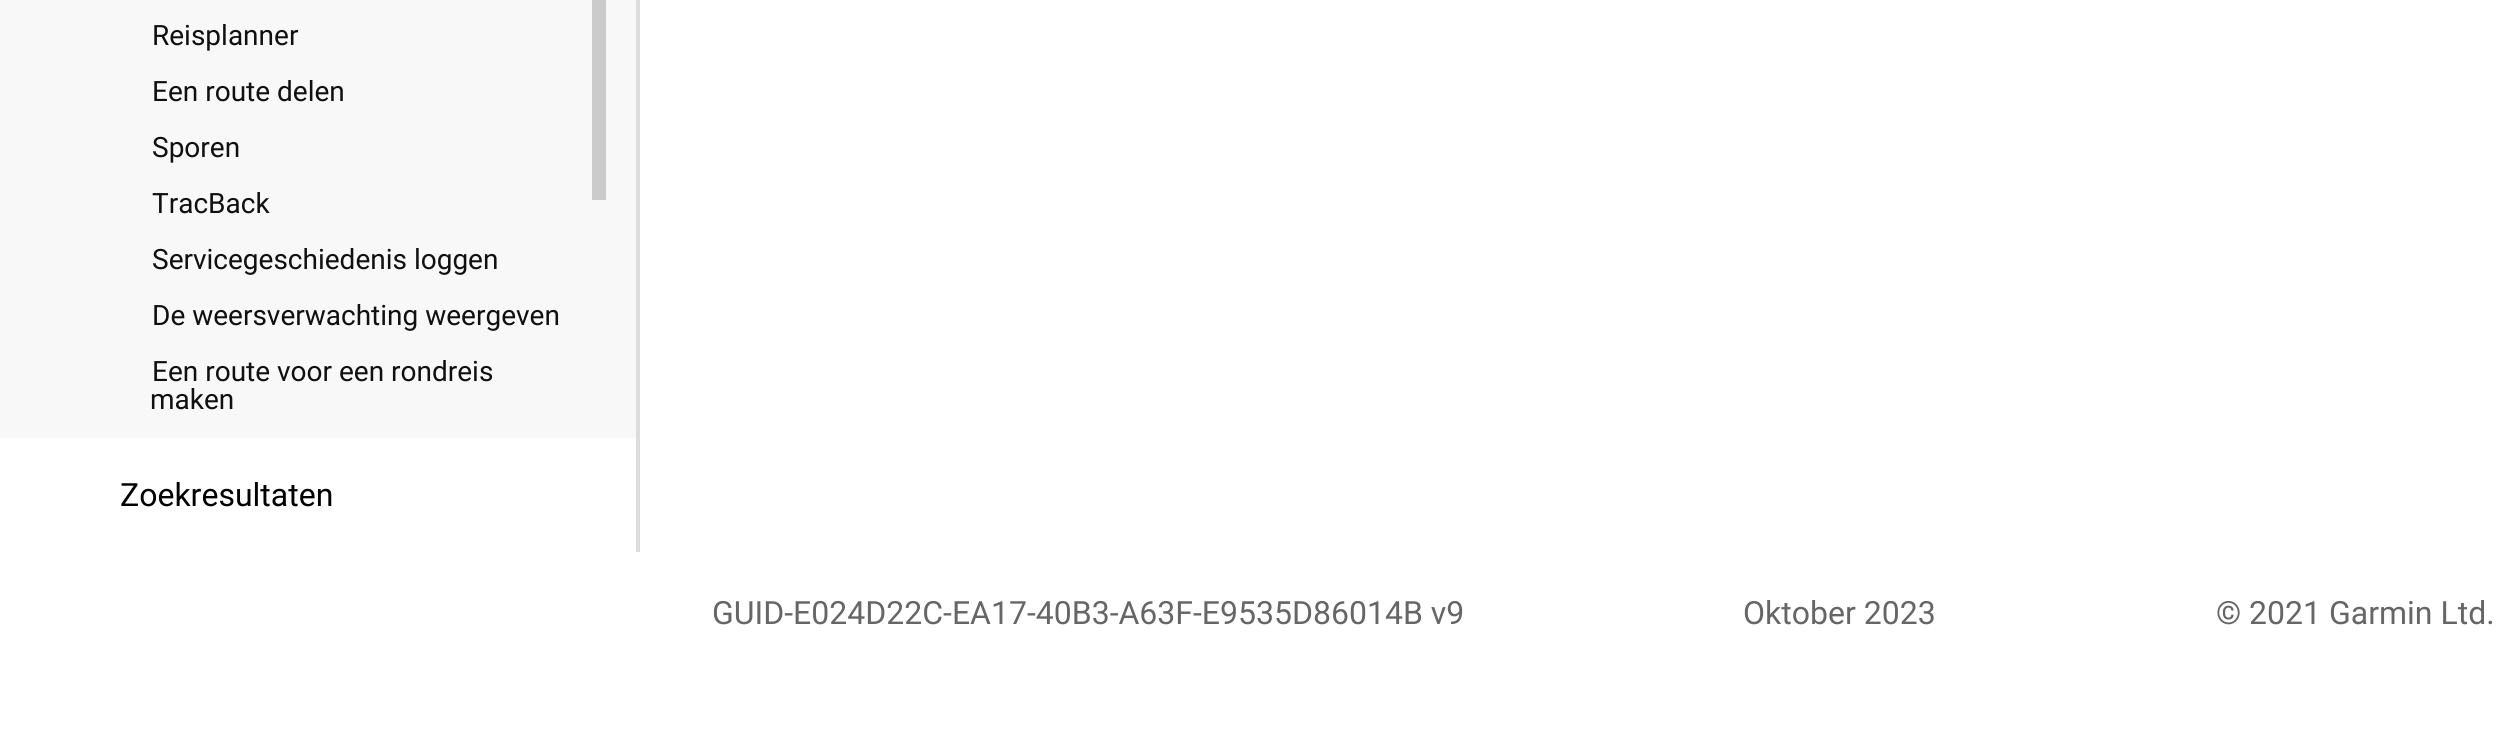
import math
import cairo

surface = cairo.ImageSurface(cairo.FORMAT_RGB24, 2513, 736)
ctx = cairo.Context(surface)
options = cairo.FontOptions()
options.set_hint_metrics(cairo.HINT_METRICS_OFF)
options.set_hint_style(cairo.HINT_STYLE_NONE)
ctx.set_font_options(options)
ctx.set_miter_limit(4)


def set_color(code):
    ctx.set_source_rgb(*(v / 255 for v in bytes.fromhex(code[-6:])))


def draw_text(x, y, s, family, size, color, bold=False, italic=False):
    ctx.select_font_face(family, cairo.FONT_SLANT_ITALIC if italic else cairo.FONT_SLANT_NORMAL, cairo.FONT_WEIGHT_BOLD if bold else cairo.FONT_WEIGHT_NORMAL)
    ctx.set_font_size(size)
    set_color(color)
    ctx.move_to(x, y)
    ctx.show_text(s)


def fill_rect(x, y, w, h, color):
    set_color(color)
    ctx.rectangle(x, y, w, h)
    ctx.fill()


set_color("#ffffff")
ctx.paint()
fill_rect(636, 0, 4, 552, "#dddddd")
fill_rect(0, 0, 636, 438, "#f8f8f8")
draw_text(152, 45, "Reisplanner", "Roboto", 28, "#101010")
draw_text(152, 101, "Een route delen", "Roboto", 28, "#101010")
draw_text(152, 157, "Sporen", "Roboto", 28, "#101010")
draw_text(152, 213, "TracBack", "Roboto", 28, "#101010")
draw_text(152, 269, "Servicegeschiedenis loggen", "Roboto", 28, "#101010")
draw_text(152, 325, "De weersverwachting weergeven", "Roboto", 28, "#101010")
draw_text(152, 381, "Een route voor een rondreis", "Roboto", 28, "#101010")
draw_text(150, 409, "maken", "Roboto", 28, "#101010")
fill_rect(592, 0, 14, 200, "#cbcbcb")
draw_text(120, 506, "Zoekresultaten", "Roboto", 32, "#000000")
draw_text(712, 624, "GUID-E024D22C-EA17-40B3-A63F-E9535D86014B v9", "Roboto", 32, "#666666")
draw_text(1743, 624, "Oktober 2023", "Roboto", 32, "#666666")
draw_text(2216, 624, "© 2021 Garmin Ltd.", "Roboto", 32, "#666666")
surface.write_to_png("output.png")
